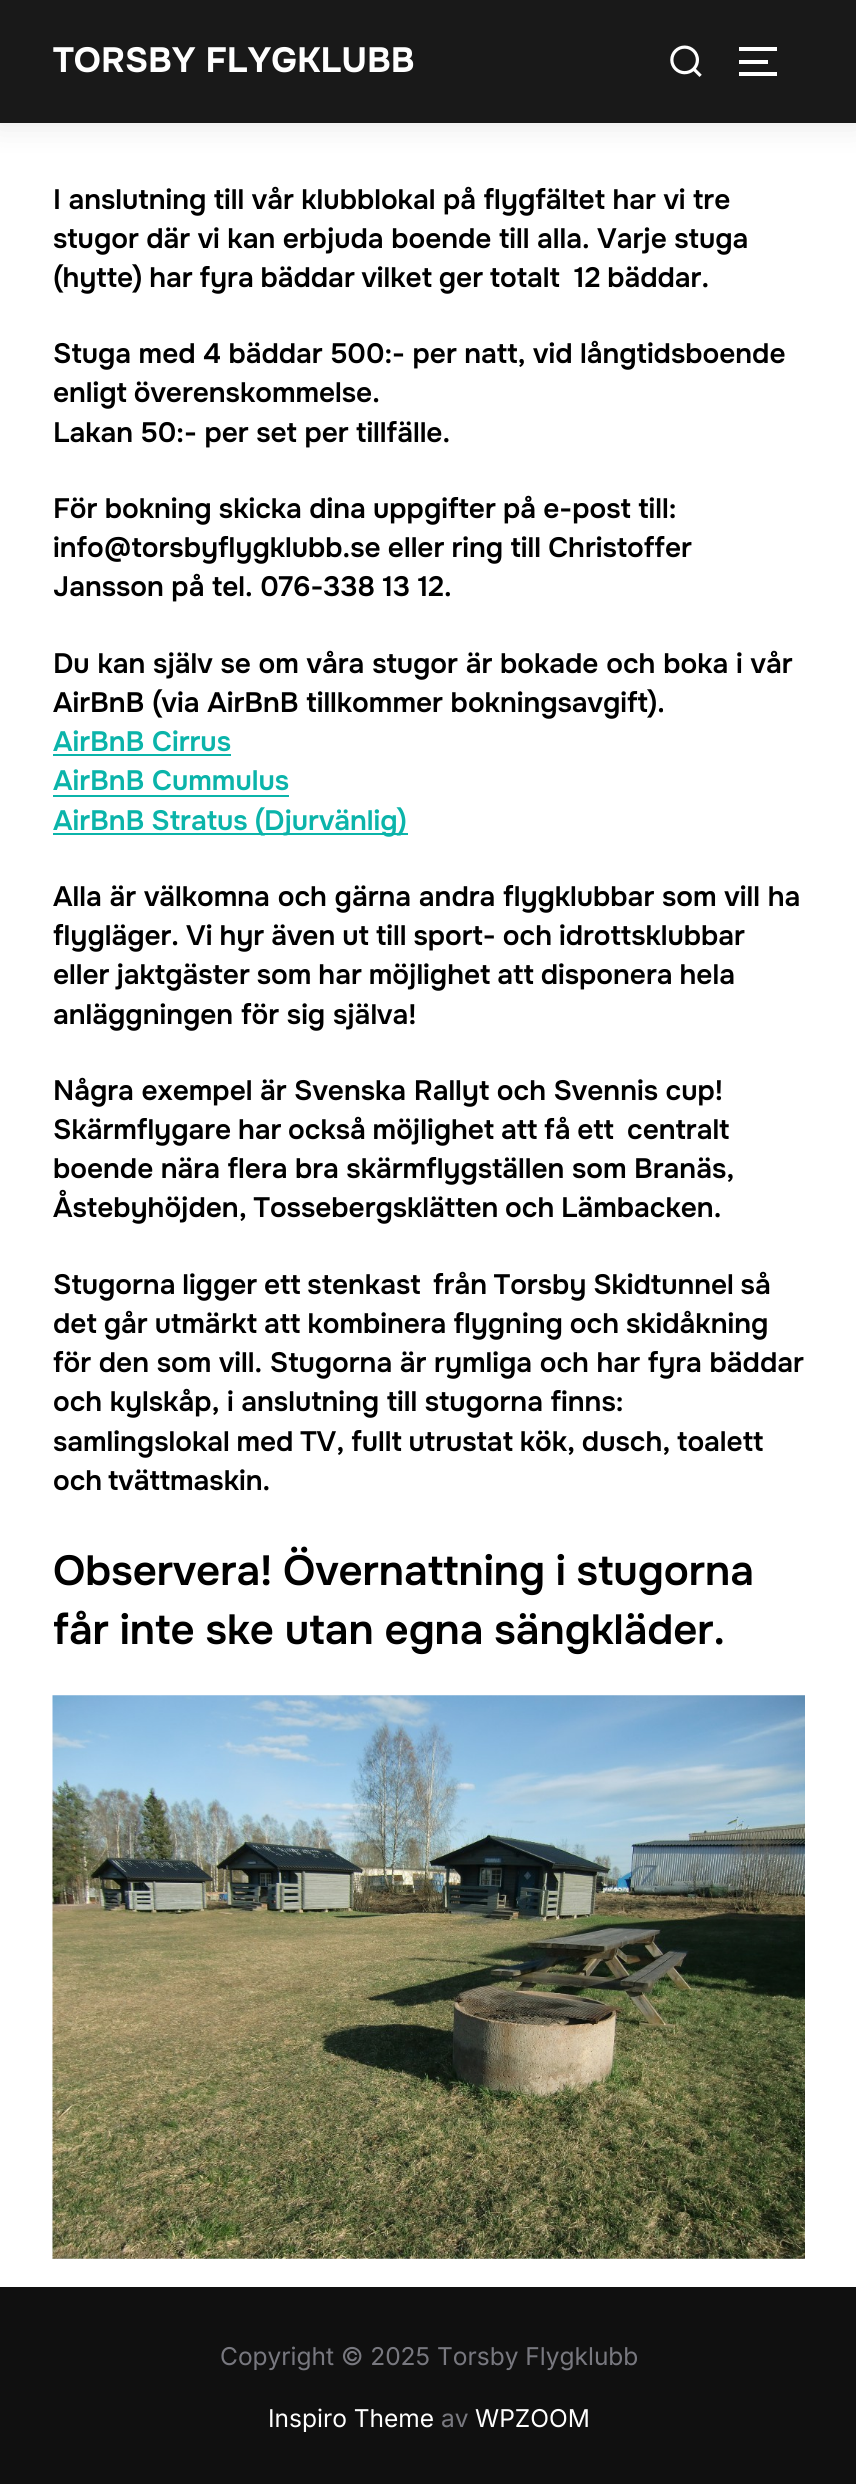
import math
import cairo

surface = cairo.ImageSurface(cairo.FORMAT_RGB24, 856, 2484)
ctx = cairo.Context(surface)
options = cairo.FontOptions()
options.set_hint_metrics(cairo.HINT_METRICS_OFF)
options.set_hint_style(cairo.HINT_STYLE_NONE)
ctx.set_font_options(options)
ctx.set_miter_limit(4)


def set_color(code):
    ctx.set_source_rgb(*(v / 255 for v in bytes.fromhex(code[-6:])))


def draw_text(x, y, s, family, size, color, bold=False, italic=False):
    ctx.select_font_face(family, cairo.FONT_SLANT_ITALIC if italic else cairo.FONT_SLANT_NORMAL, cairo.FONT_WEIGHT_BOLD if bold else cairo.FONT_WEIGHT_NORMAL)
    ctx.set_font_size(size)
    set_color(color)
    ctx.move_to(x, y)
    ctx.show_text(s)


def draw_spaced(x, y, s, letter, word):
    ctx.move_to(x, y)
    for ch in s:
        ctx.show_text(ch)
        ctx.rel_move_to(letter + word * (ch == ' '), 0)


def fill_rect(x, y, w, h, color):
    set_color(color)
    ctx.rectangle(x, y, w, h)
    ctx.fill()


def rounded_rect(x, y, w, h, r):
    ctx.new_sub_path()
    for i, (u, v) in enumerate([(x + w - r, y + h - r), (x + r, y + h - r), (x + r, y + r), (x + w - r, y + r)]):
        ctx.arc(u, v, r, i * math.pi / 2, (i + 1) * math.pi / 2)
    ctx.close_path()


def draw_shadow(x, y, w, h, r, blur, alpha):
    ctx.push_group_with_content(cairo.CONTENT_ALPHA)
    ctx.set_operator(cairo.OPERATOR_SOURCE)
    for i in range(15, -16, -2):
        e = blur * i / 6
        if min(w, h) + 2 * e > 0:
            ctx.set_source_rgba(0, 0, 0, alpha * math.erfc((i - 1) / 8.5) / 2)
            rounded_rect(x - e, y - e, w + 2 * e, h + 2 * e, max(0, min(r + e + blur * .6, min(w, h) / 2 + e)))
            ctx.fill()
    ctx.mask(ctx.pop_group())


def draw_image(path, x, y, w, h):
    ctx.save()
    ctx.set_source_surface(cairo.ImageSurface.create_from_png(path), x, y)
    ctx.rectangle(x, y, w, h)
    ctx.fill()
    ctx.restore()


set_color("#ffffff")
ctx.paint()
ctx.save()
ctx.set_fill_rule(cairo.FILL_RULE_EVEN_ODD)
ctx.new_path()
ctx.move_to(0, 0)
ctx.line_to(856, 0)
ctx.line_to(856, 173)
ctx.line_to(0, 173)
ctx.close_path()
ctx.move_to(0, 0)
ctx.line_to(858, 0)
ctx.line_to(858, 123)
ctx.line_to(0, 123)
ctx.close_path()
ctx.clip()
set_color("#000000")
draw_shadow(-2, -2, 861, 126, 0, 16, 0.1)
ctx.restore()
ctx.set_source_rgba(0, 0, 0, 0.9)
ctx.rectangle(0, 0, 856, 123)
ctx.fill()
draw_text(53, 72, "TORSBY FLYGKLUBB", "Onest", 35, "#ffffff", bold=True)
draw_image("assets/img1.png", 670, 45, 32, 32)
fill_rect(739, 47, 38, 4, "#ffffff")
fill_rect(739, 60, 29, 4, "#ffffff")
fill_rect(739, 72, 38, 4, "#ffffff")
ctx.select_font_face("Onest SemiBold")
ctx.set_font_size(28)
set_color("#000000")
draw_spaced(53, 209, "I anslutning till vår klubblokal på flygfältet har vi tre", 0, -0.25)
draw_spaced(53, 248, "stugor där vi kan erbjuda boende till alla. Varje stuga", 0, -0.25)
draw_spaced(53, 287, "(hytte) har fyra bäddar vilket ger totalt", 0, -1)
draw_spaced(574, 287, "12 bäddar.", 0, -1)
draw_spaced(53, 363, "Stuga med 4 bäddar 500:- per natt, vid långtidsboende", 0, -0.25)
draw_spaced(53, 402, "enligt överenskommelse.", 0, -1)
draw_spaced(53, 442, "Lakan 50:- per set per tillfälle.", 0, -0.25)
draw_spaced(53, 518, "För bokning skicka dina uppgifter på e-post till:", 0, -0.5)
draw_spaced(53, 557, "info@torsbyflygklubb.se eller ring till Christoffer", 0, -0.5)
draw_spaced(53, 596, "Jansson på tel. 076-338 13 12.", 0, -0.25)
draw_text(53, 673, "Du kan själv se om våra stugor är bokade och boka i vår", "Onest SemiBold", 28, "#000000")
draw_text(53, 712, "AirBnB (via AirBnB tillkommer bokningsavgift).", "Onest SemiBold", 28, "#000000")
draw_text(53, 751, "AirBnB Cirrus", "Onest SemiBold", 28, "#0bb4aa")
fill_rect(53, 754, 178, 2, "#0bb4aa")
draw_text(53, 790, "AirBnB Cummulus", "Onest SemiBold", 28, "#0bb4aa")
fill_rect(53, 795, 236, 2, "#0bb4aa")
fill_rect(53, 833, 355, 2, "#0bb4aa")
draw_spaced(53, 830, "AirBnB Stratus (Djurvänlig)", 0, -0.75)
draw_text(53, 906, "Alla är välkomna och gärna andra flygklubbar som vill ha", "Onest SemiBold", 28, "#000000")
draw_spaced(53, 945, "flygläger. Vi hyr även ut till sport- och idrottsklubbar", 0, -0.75)
draw_spaced(53, 984, "eller jaktgäster som har möjlighet att disponera hela", 0, -0.75)
draw_text(53, 1024, "anläggningen för sig själva!", "Onest SemiBold", 28, "#000000")
draw_spaced(53, 1100, "Några exempel är Svenska Rallyt och Svennis cup!", 0, -0.25)
draw_spaced(53, 1139, "Skärmflygare har också möjlighet att få ett", 0, -1)
draw_spaced(627, 1139, "centralt", 0, -1)
draw_spaced(53, 1178, "boende nära flera bra skärmflygställen som Branäs,", 0, -0.25)
draw_spaced(53, 1217, "Åstebyhöjden, Tossebergsklätten och Lämbacken.", 0, -1)
draw_spaced(53, 1294, "Stugorna ligger ett stenkast", 0, -1)
draw_spaced(433, 1294, "från Torsby Skidtunnel så", 0, -1)
draw_spaced(53, 1333, "det går utmärkt att kombinera flygning och skidåkning", 0, -0.75)
draw_spaced(53, 1372, "för den som vill. Stugorna är rymliga och har fyra bäddar", 0, -0.1)
draw_spaced(53, 1411, "och kylskåp, i anslutning till stugorna finns:", 0, -0.25)
draw_spaced(53, 1451, "samlingslokal med TV, fullt utrustat kök, dusch, toalett", 0, -1)
draw_spaced(53, 1490, "och tvättmaskin.", 0, -2)
ctx.set_font_size(42)
draw_spaced(53, 1585, "Observera! Övernattning i stugorna", 0, -1)
draw_spaced(53, 1644, "får inte ske utan egna sängkläder.", 0, -0.75)
draw_image("assets/img2.png", 52, 1695, 753, 564)
fill_rect(0, 2287, 856, 197, "#101010")
draw_text(220, 2365, "Copyright © 2025 Torsby Flygklubb", "Inter", 24.5, "#78787f")
draw_text(268, 2427, "Inspiro Theme", "Inter", 24.5, "#ffffff")
draw_text(441, 2427, "av", "Inter", 24.5, "#78787f")
draw_text(475, 2427, "WPZOOM", "Inter", 24.5, "#ffffff")
surface.write_to_png("output.png")
